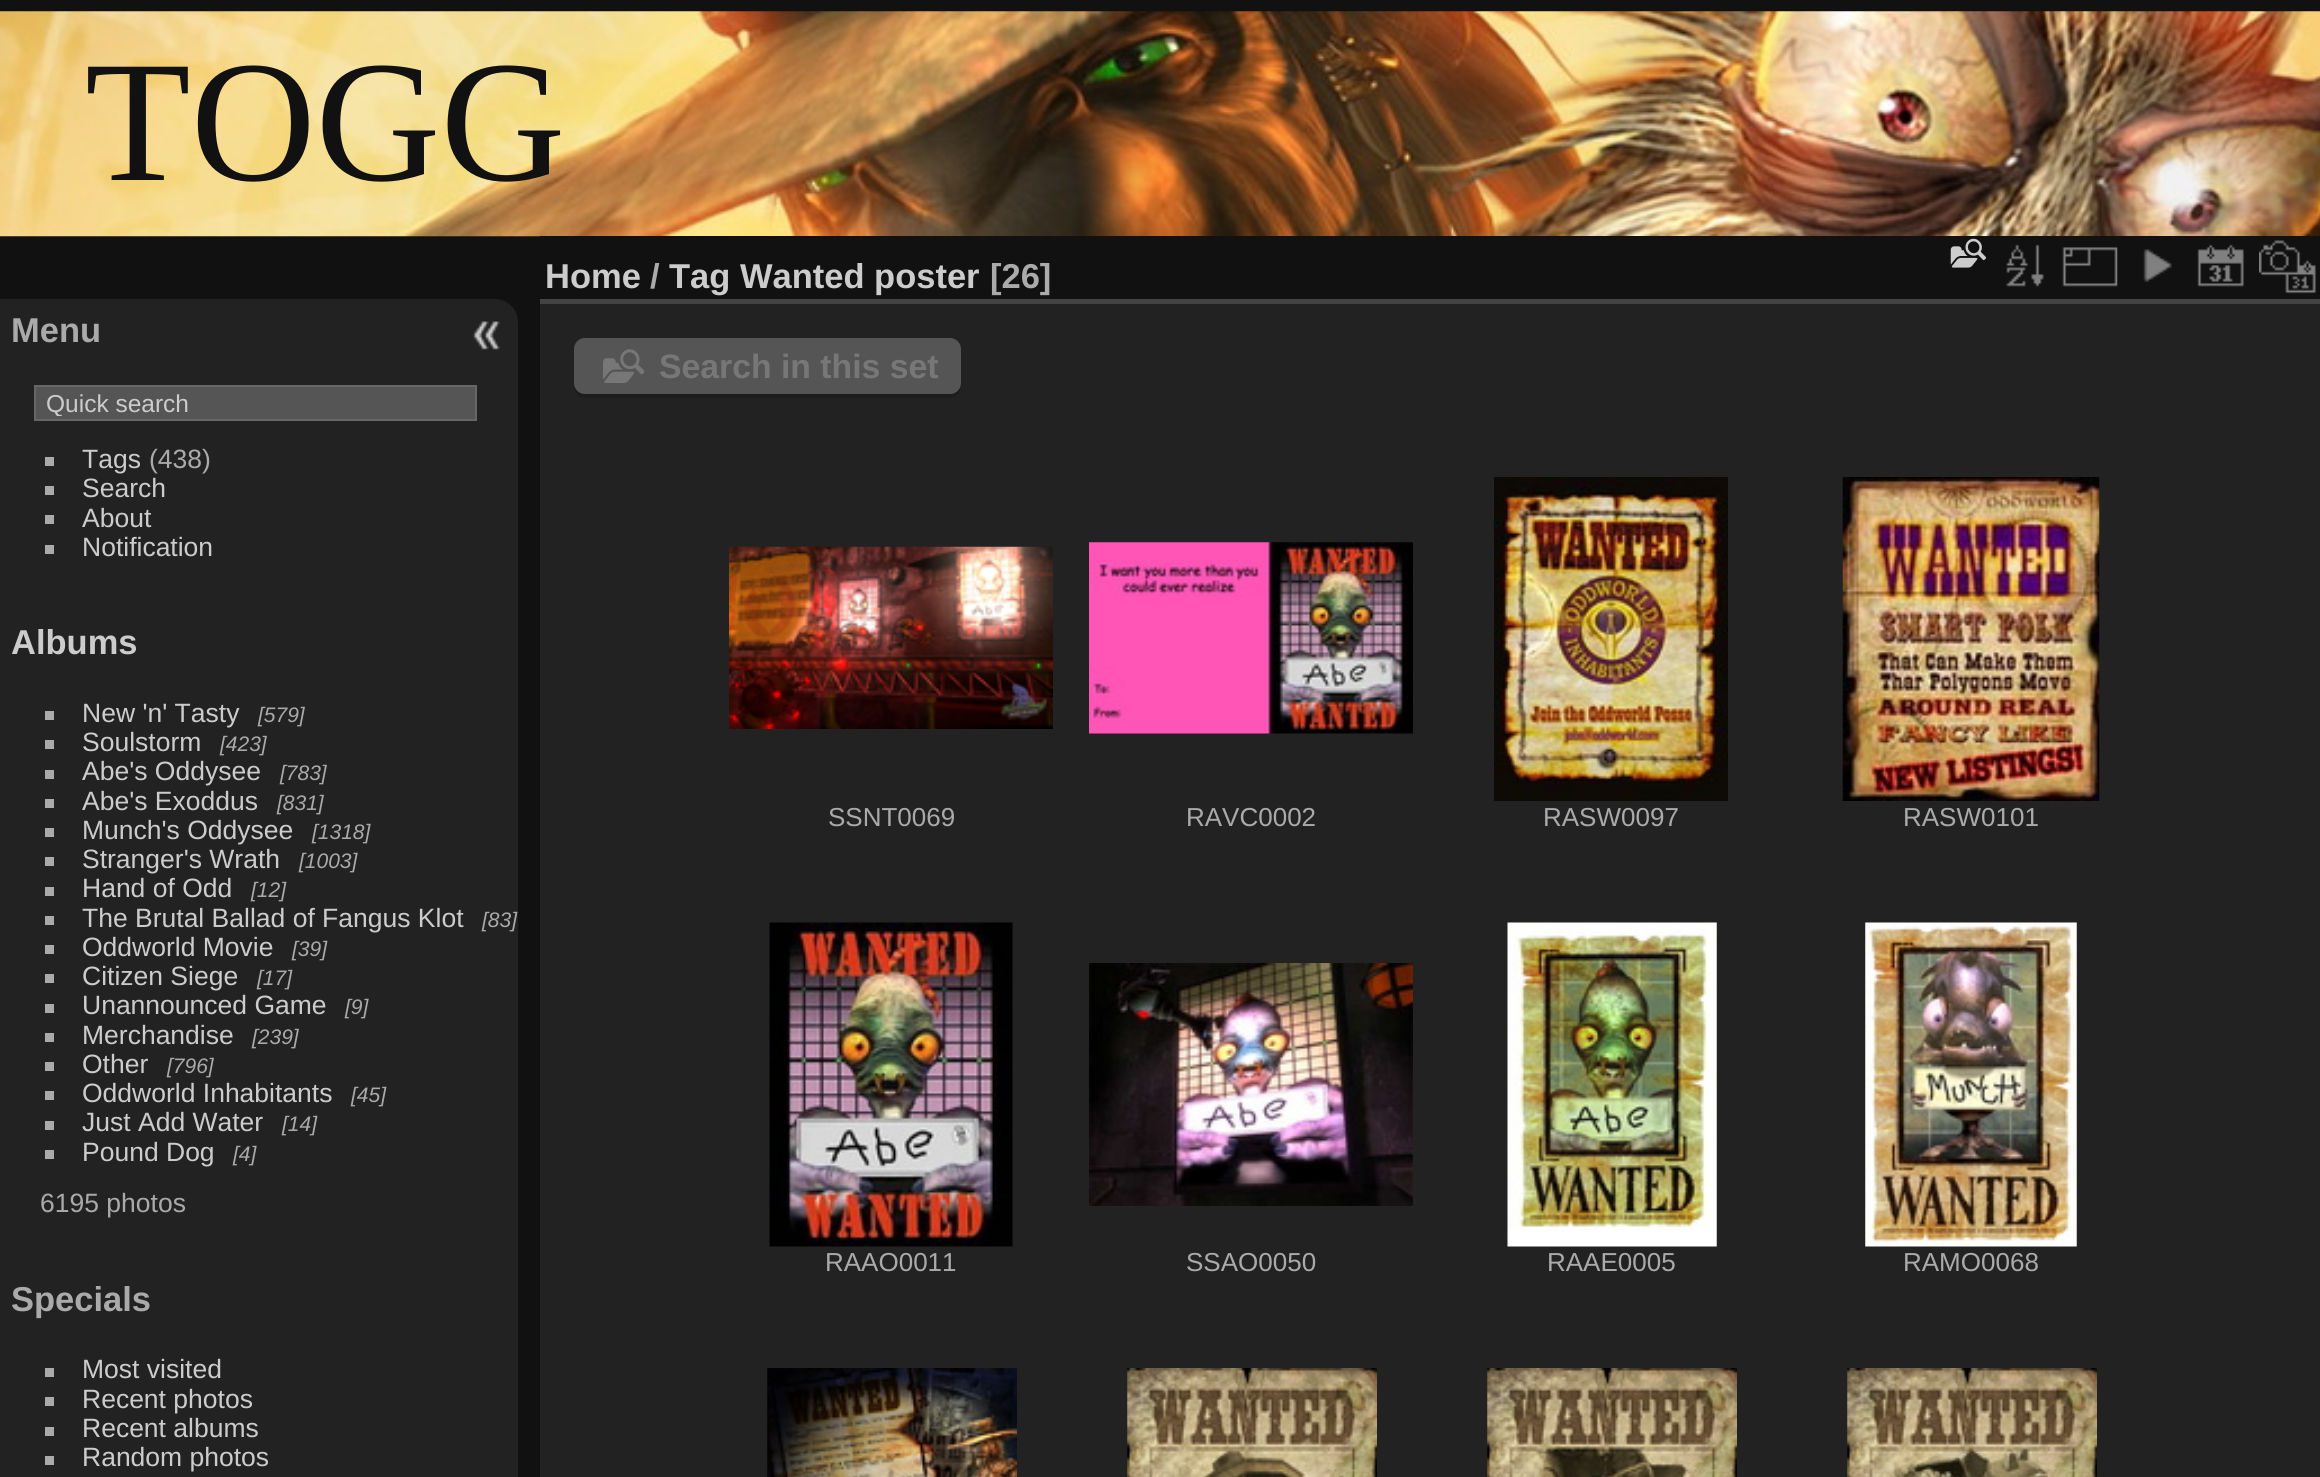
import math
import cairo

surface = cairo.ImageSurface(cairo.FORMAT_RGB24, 2320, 1477)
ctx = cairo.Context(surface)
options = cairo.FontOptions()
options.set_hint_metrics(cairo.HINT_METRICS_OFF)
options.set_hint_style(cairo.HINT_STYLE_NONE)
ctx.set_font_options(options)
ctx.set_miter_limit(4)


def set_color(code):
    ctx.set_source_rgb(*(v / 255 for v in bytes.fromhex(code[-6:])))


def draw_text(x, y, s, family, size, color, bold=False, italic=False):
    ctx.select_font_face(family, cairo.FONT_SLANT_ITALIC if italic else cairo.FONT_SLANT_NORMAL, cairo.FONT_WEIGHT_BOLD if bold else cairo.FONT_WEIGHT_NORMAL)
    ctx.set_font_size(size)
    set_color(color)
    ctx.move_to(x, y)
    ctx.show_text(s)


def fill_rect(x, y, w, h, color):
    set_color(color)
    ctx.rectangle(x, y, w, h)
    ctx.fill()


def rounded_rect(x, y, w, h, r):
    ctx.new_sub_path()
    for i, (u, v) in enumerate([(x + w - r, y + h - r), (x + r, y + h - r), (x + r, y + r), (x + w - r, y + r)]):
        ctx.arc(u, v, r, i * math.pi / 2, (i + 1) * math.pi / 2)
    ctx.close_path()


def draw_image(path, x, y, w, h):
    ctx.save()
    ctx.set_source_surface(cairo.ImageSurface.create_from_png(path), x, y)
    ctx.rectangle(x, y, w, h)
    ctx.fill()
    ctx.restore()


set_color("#111111")
ctx.paint()
draw_image("assets/img1.png", 0, 11, 2320, 226)
draw_text(85, 180, "TOGG", "Liberation Serif", 173, "#111111")
set_color("#222222")
ctx.new_path()
ctx.move_to(0, 299)
ctx.line_to(495, 299)
ctx.curve_to(507.5, 299, 518, 309.5, 518, 322)
ctx.line_to(518, 1477)
ctx.curve_to(518, 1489.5, 507.5, 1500, 495, 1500)
ctx.line_to(0, 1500)
ctx.close_path()
ctx.fill()
draw_text(11, 342, "Menu", "Liberation Sans", 34.5, "#aaaaaa", bold=True)
set_color("#555555")
ctx.rectangle(35, 386, 441, 34)
ctx.fill_preserve()
set_color("#666666")
ctx.stroke()
ctx.save()
ctx.rectangle(41, 389, 429, 27)
ctx.clip()
draw_text(46, 412, "Quick search", "Liberation Sans", 24.5, "#cccccc")
ctx.restore()
fill_rect(45, 457, 9, 9, "#aaaaaa")
draw_text(82, 468, "Tags", "Liberation Sans", 26.5, "#cccccc")
draw_text(149, 468, "(438)", "Liberation Sans", 26.5, "#aaaaaa")
fill_rect(45, 486, 9, 9, "#aaaaaa")
draw_text(82, 497, "Search", "Liberation Sans", 26.5, "#cccccc")
fill_rect(45, 515, 9, 9, "#aaaaaa")
draw_text(82, 527, "About", "Liberation Sans", 26.5, "#cccccc")
fill_rect(45, 545, 9, 9, "#aaaaaa")
draw_text(82, 556, "Notification", "Liberation Sans", 26.5, "#cccccc")
draw_text(11, 654, "Albums", "Liberation Sans", 34.5, "#cccccc", bold=True)
fill_rect(45, 711, 9, 9, "#aaaaaa")
draw_text(82, 722, "New 'n' Tasty", "Liberation Sans", 26.5, "#cccccc")
draw_text(258, 722, "[579]", "Liberation Sans", 21, "#aaaaaa", italic=True)
fill_rect(45, 740, 9, 9, "#aaaaaa")
draw_text(82, 751, "Soulstorm", "Liberation Sans", 26.5, "#cccccc")
draw_text(220, 751, "[423]", "Liberation Sans", 21, "#aaaaaa", italic=True)
fill_rect(45, 770, 9, 9, "#aaaaaa")
draw_text(82, 780, "Abe's Oddysee", "Liberation Sans", 26.5, "#cccccc")
draw_text(280, 780, "[783]", "Liberation Sans", 21, "#aaaaaa", italic=True)
fill_rect(45, 799, 9, 9, "#aaaaaa")
draw_text(82, 810, "Abe's Exoddus", "Liberation Sans", 26.5, "#cccccc")
draw_text(277, 810, "[831]", "Liberation Sans", 21, "#aaaaaa", italic=True)
fill_rect(45, 828, 9, 9, "#aaaaaa")
draw_text(82, 839, "Munch's Oddysee", "Liberation Sans", 26.5, "#cccccc")
draw_text(312, 839, "[1318]", "Liberation Sans", 21, "#aaaaaa", italic=True)
fill_rect(45, 857, 9, 9, "#aaaaaa")
draw_text(82, 868, "Stranger's Wrath", "Liberation Sans", 26.5, "#cccccc")
draw_text(299, 868, "[1003]", "Liberation Sans", 21, "#aaaaaa", italic=True)
fill_rect(45, 887, 9, 9, "#aaaaaa")
draw_text(82, 897, "Hand of Odd", "Liberation Sans", 26.5, "#cccccc")
draw_text(251, 897, "[12]", "Liberation Sans", 21, "#aaaaaa", italic=True)
fill_rect(45, 916, 9, 9, "#aaaaaa")
draw_text(82, 927, "The Brutal Ballad of Fangus Klot", "Liberation Sans", 26.5, "#cccccc")
draw_text(482, 927, "[83]", "Liberation Sans", 21, "#aaaaaa", italic=True)
fill_rect(45, 945, 9, 9, "#aaaaaa")
draw_text(82, 956, "Oddworld Movie", "Liberation Sans", 26.5, "#cccccc")
draw_text(292, 956, "[39]", "Liberation Sans", 21, "#aaaaaa", italic=True)
fill_rect(45, 974, 9, 9, "#aaaaaa")
draw_text(82, 985, "Citizen Siege", "Liberation Sans", 26.5, "#cccccc")
draw_text(257, 985, "[17]", "Liberation Sans", 21, "#aaaaaa", italic=True)
fill_rect(45, 1004, 9, 9, "#aaaaaa")
draw_text(82, 1014, "Unannounced Game", "Liberation Sans", 26.5, "#cccccc")
draw_text(345, 1014, "[9]", "Liberation Sans", 21, "#aaaaaa", italic=True)
fill_rect(45, 1033, 9, 9, "#aaaaaa")
draw_text(82, 1044, "Merchandise", "Liberation Sans", 26.5, "#cccccc")
draw_text(252, 1044, "[239]", "Liberation Sans", 21, "#aaaaaa", italic=True)
fill_rect(45, 1062, 9, 9, "#aaaaaa")
draw_text(82, 1073, "Other", "Liberation Sans", 26.5, "#cccccc")
draw_text(167, 1073, "[796]", "Liberation Sans", 21, "#aaaaaa", italic=True)
fill_rect(45, 1091, 9, 9, "#aaaaaa")
draw_text(82, 1102, "Oddworld Inhabitants", "Liberation Sans", 26.5, "#cccccc")
draw_text(351, 1102, "[45]", "Liberation Sans", 21, "#aaaaaa", italic=True)
fill_rect(45, 1121, 9, 9, "#aaaaaa")
draw_text(82, 1131, "Just Add Water", "Liberation Sans", 26.5, "#cccccc")
draw_text(282, 1131, "[14]", "Liberation Sans", 21, "#aaaaaa", italic=True)
fill_rect(45, 1150, 9, 9, "#aaaaaa")
draw_text(82, 1161, "Pound Dog", "Liberation Sans", 26.5, "#cccccc")
draw_text(233, 1161, "[4]", "Liberation Sans", 21, "#aaaaaa", italic=True)
draw_text(40, 1212, "6195 photos", "Liberation Sans", 26.5, "#aaaaaa")
draw_text(11, 1311, "Specials", "Liberation Sans", 34.5, "#aaaaaa", bold=True)
fill_rect(45, 1368, 9, 9, "#aaaaaa")
draw_text(82, 1378, "Most visited", "Liberation Sans", 26.5, "#cccccc")
fill_rect(45, 1397, 9, 9, "#aaaaaa")
draw_text(82, 1408, "Recent photos", "Liberation Sans", 26.5, "#cccccc")
fill_rect(45, 1427, 9, 9, "#aaaaaa")
draw_text(82, 1437, "Recent albums", "Liberation Sans", 26.5, "#cccccc")
fill_rect(45, 1456, 9, 9, "#aaaaaa")
draw_text(82, 1466, "Random photos", "Liberation Sans", 26.5, "#cccccc")
fill_rect(540, 304, 1780, 1173, "#222222")
fill_rect(540, 236, 1780, 1, "#111111")
fill_rect(540, 299, 1780, 5, "#444444")
draw_text(545, 288, "Home", "Liberation Sans", 34.5, "#cccccc", bold=True)
draw_text(650, 288, "/", "Liberation Sans", 34.5, "#aaaaaa", bold=True)
draw_text(669, 288, "Tag Wanted poster", "Liberation Sans", 34.5, "#cccccc", bold=True)
draw_text(990, 288, "[26]", "Liberation Sans", 34.5, "#aaaaaa", bold=True)
draw_image("assets/img2.png", 1950, 238, 37, 30)
draw_image("assets/img3.png", 2006, 244, 38, 43)
draw_image("assets/img4.png", 2062, 247, 56, 40)
draw_image("assets/img5.png", 2143, 249, 29, 33)
draw_image("assets/img6.png", 2197, 244, 47, 43)
draw_image("assets/img7.png", 2259, 240, 57, 54)
set_color("#1d1d1d")
ctx.new_path()
ctx.move_to(574, 385)
ctx.curve_to(574, 392, 577, 398, 585, 398)
ctx.line_to(950, 398)
ctx.curve_to(963, 398, 961, 384, 961, 376)
ctx.line_to(961, 351)
ctx.line_to(961, 382)
ctx.curve_to(961, 389, 956, 394, 950, 394)
ctx.line_to(585, 394)
ctx.curve_to(580, 394, 575, 390, 574, 385)
ctx.close_path()
ctx.fill()
set_color("#555555")
rounded_rect(574, 338, 387, 56, 11)
ctx.fill()
draw_image("assets/img8.png", 603, 349, 42, 34)
draw_text(659, 378, "Search in this set", "Liberation Sans", 33.75, "#777777", bold=True)
draw_image("assets/img9.png", 729, 546, 324, 183)
draw_text(828, 826, "SSNT0069", "Liberation Sans", 26, "#aaaaaa")
draw_image("assets/img10.png", 1089, 542, 324, 192)
draw_text(1186, 826, "RAVC0002", "Liberation Sans", 26, "#aaaaaa")
draw_image("assets/img11.png", 1494, 477, 234, 324)
draw_text(1543, 826, "RASW0097", "Liberation Sans", 26, "#aaaaaa")
draw_image("assets/img12.png", 1842, 477, 258, 324)
draw_text(1903, 826, "RASW0101", "Liberation Sans", 26, "#aaaaaa")
draw_image("assets/img13.png", 769, 922, 244, 325)
draw_text(825, 1271, "RAAO0011", "Liberation Sans", 26, "#aaaaaa")
draw_image("assets/img14.png", 1089, 963, 324, 243)
draw_text(1186, 1271, "SSAO0050", "Liberation Sans", 26, "#aaaaaa")
draw_image("assets/img15.png", 1507, 922, 210, 325)
draw_text(1547, 1271, "RAAE0005", "Liberation Sans", 26, "#aaaaaa")
draw_image("assets/img16.png", 1865, 922, 212, 325)
draw_text(1903, 1271, "RAMO0068", "Liberation Sans", 26, "#aaaaaa")
draw_image("assets/img17.png", 767, 1368, 250, 109)
draw_image("assets/img18.png", 1127, 1368, 250, 109)
draw_image("assets/img19.png", 1487, 1368, 250, 109)
draw_image("assets/img20.png", 1847, 1368, 250, 109)
draw_image("assets/img21.png", 472, 321, 28, 29)
surface.write_to_png("output.png")
